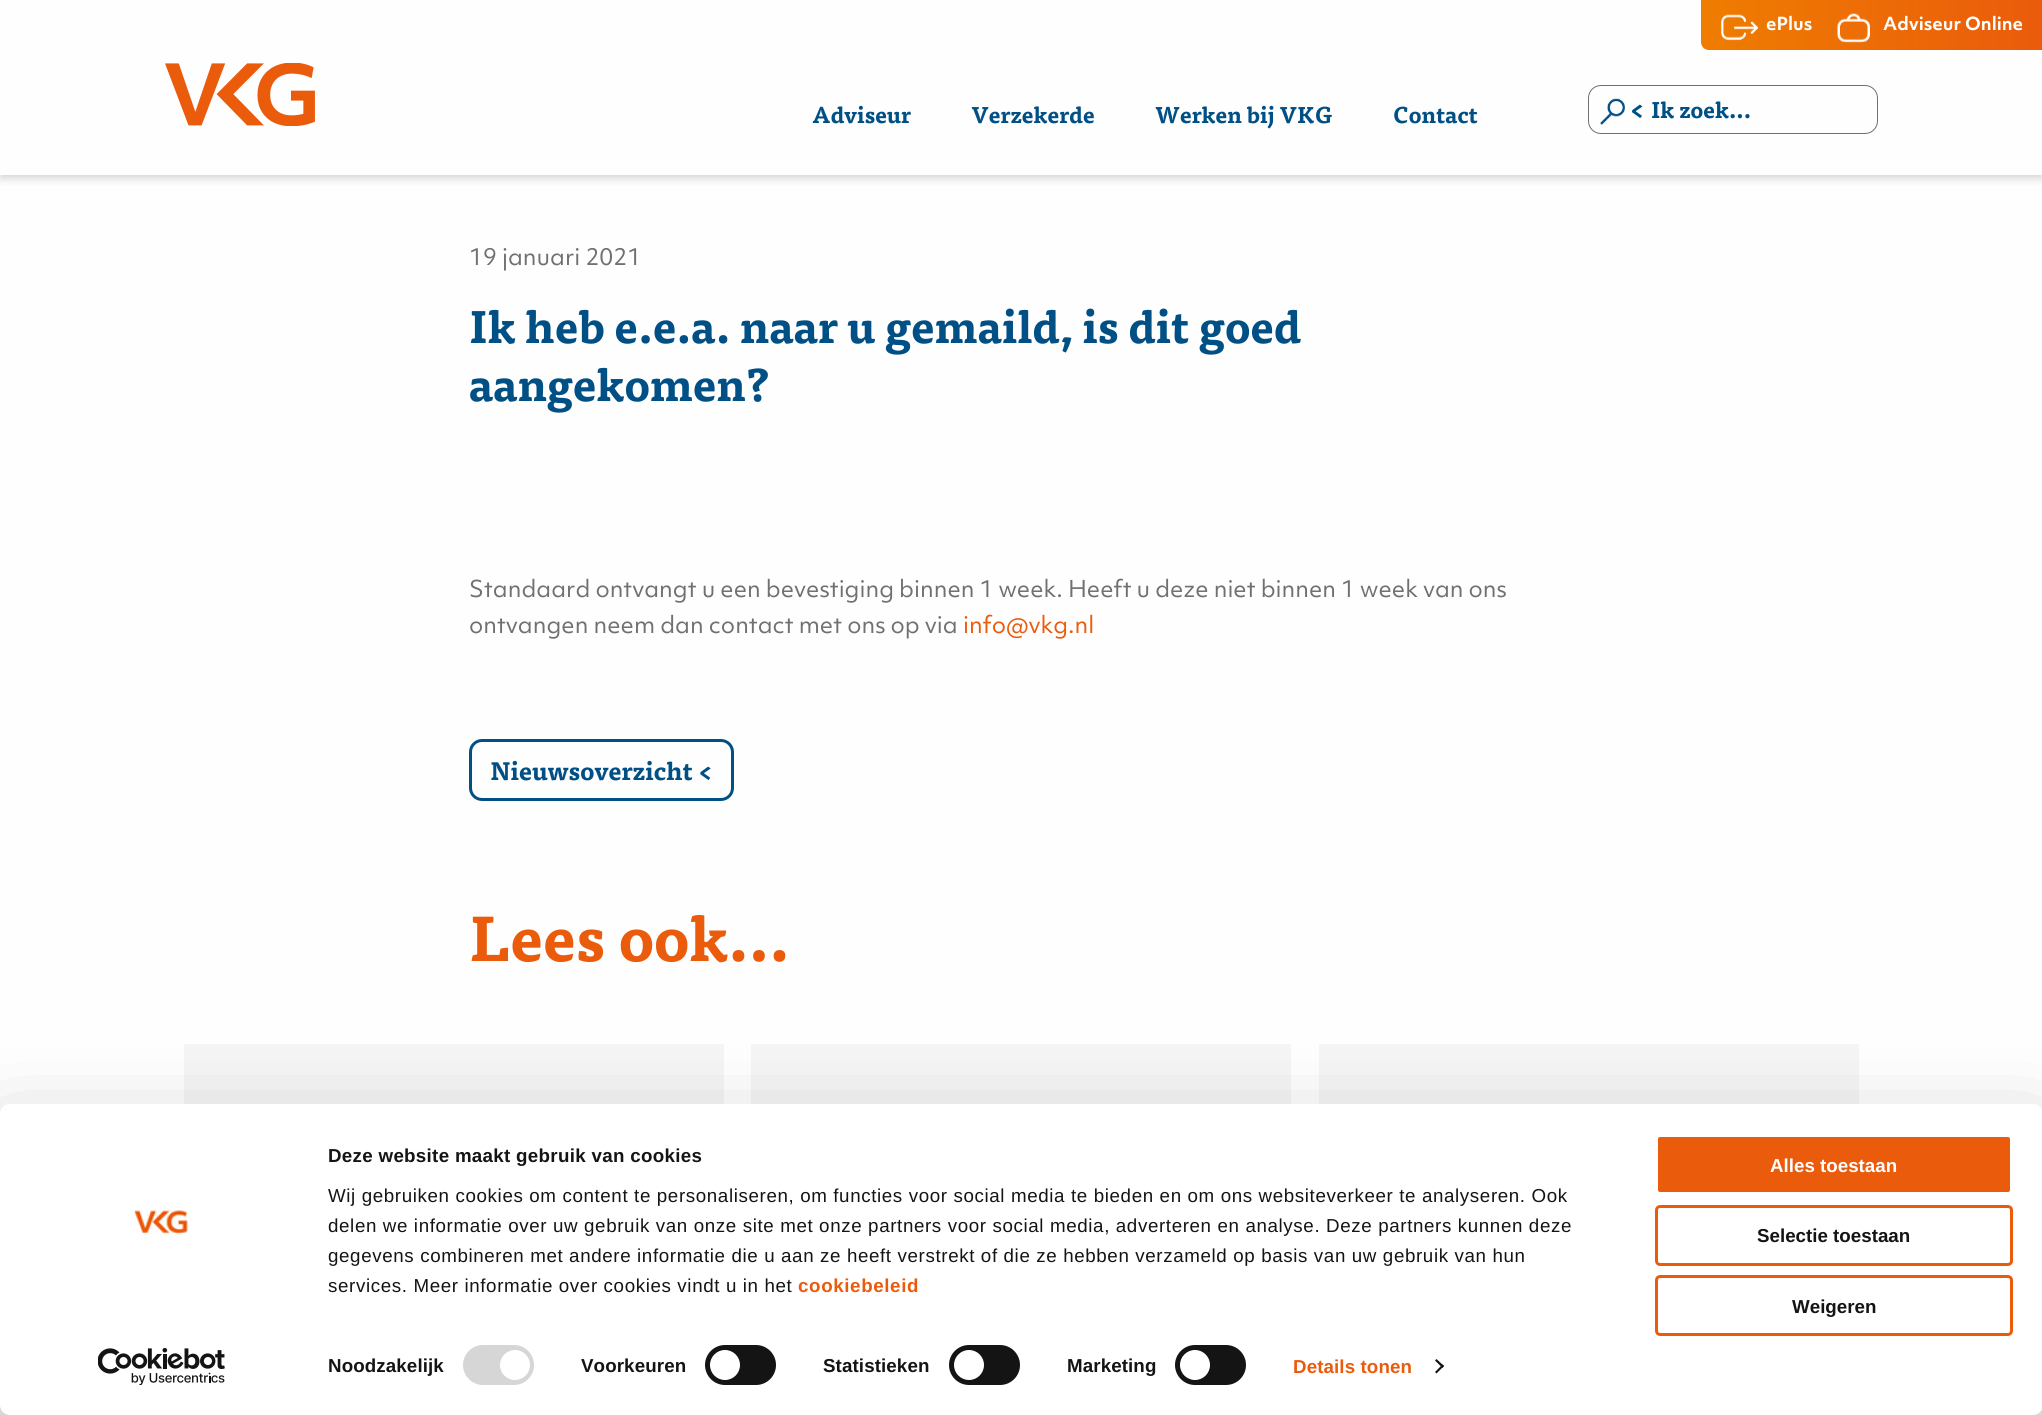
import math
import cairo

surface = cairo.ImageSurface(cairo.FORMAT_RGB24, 2042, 1415)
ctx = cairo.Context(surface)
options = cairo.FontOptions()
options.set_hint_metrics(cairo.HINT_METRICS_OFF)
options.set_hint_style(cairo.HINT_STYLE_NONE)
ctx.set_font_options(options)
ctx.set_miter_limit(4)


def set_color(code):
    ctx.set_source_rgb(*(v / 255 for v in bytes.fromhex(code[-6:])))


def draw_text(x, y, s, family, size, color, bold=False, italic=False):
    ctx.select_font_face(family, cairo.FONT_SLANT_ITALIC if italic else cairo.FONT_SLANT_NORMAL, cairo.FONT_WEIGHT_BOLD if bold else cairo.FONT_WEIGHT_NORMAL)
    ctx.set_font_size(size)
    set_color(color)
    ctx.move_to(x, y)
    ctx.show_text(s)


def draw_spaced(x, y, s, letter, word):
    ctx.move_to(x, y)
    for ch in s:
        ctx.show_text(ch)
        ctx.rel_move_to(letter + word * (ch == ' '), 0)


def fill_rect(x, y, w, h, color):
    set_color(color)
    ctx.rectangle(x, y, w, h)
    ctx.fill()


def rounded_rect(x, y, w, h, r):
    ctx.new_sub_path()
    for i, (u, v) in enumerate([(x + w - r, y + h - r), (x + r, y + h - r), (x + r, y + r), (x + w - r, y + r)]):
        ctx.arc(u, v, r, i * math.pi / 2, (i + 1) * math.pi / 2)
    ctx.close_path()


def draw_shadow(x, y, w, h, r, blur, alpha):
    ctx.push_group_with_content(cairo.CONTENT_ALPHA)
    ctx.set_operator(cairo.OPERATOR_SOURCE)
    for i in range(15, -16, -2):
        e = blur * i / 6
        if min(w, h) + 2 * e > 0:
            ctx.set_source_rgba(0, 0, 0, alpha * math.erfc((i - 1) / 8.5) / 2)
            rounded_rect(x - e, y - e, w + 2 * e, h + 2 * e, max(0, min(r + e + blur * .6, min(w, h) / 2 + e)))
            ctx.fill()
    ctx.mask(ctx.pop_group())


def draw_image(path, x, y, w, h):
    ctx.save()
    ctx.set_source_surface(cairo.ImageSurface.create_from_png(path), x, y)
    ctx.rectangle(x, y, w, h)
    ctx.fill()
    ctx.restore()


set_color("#fefefe")
ctx.paint()
set_color("#0a0a0a")
draw_shadow(0, 4, 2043, 175, 0, 4, 0.16)
fill_rect(0, 0, 2042, 175, "#fefefe")
gradient = cairo.LinearGradient(1701, 25, 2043, 25)
gradient.add_color_stop_rgba(0, 0.937, 0.49, 0, 1)
gradient.add_color_stop_rgba(1, 0.918, 0.357, 0.047, 1)
ctx.set_source(gradient)
ctx.new_path()
ctx.move_to(1701, 0)
ctx.line_to(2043, 0)
ctx.line_to(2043, 50)
ctx.line_to(1709, 50)
ctx.curve_to(1704.5, 50, 1701, 46.5, 1701, 42)
ctx.close_path()
ctx.fill()
draw_image("assets/img1.png", 1721, 14, 37, 27)
draw_text(1766, 30, "ePlus", "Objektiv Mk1", 17.5, "#fefefe", bold=True)
draw_image("assets/img2.png", 1837, 13, 33, 30)
draw_text(1883, 30, "Adviseur Online", "Objektiv Mk1", 17.5, "#fefefe", bold=True)
draw_image("assets/img3.png", 165, 63, 150, 63)
draw_text(812, 123, "Adviseur", "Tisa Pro", 22.5, "#005086", bold=True)
draw_text(971, 123, "Verzekerde", "Tisa Pro", 22.5, "#005086", bold=True)
draw_text(1155, 123, "Werken bij VKG", "Tisa Pro", 22.5, "#005086", bold=True)
draw_text(1393, 123, "Contact", "Tisa Pro", 22.5, "#005086", bold=True)
rounded_rect(1588.5, 85.5, 289, 48, 12.5)
set_color("#707070")
ctx.set_line_width(1)
ctx.stroke()
draw_image("assets/img4.png", 1600, 98, 25, 27)
draw_text(1630, 118, "<", "Tisa Pro", 25, "#005086", bold=True)
draw_text(1651, 118, "Ik zoek...", "Tisa Pro", 22.5, "#005086", bold=True)
draw_text(469, 265, "19 januari 2021", "Objektiv Mk1", 22.5, "#707070")
draw_text(469, 343, "Ik heb e.e.a. naar u gemaild, is dit goed", "Tisa Pro", 45, "#005086", bold=True)
draw_text(469, 401, "aangekomen?", "Tisa Pro", 45, "#005086", bold=True)
draw_text(469, 597, "Standaard ontvangt u een bevestiging binnen 1 week. Heeft u deze niet binnen 1 week van ons", "Objektiv Mk1", 22.5, "#707070")
draw_text(469, 633, "ontvangen neem dan contact met ons op via", "Objektiv Mk1", 22.5, "#707070")
draw_text(963, 633, "info@vkg.nl", "Objektiv Mk1", 22.5, "#ea5b0c")
rounded_rect(470.5, 740.5, 262, 59, 11.5)
set_color("#005086")
ctx.set_line_width(3)
ctx.stroke()
draw_text(490, 780, "Nieuwsoverzicht <", "Tisa Pro", 25, "#005086", bold=True)
draw_text(469, 961, "Lees ook...", "Tisa Pro", 62.5, "#ea5b0c", bold=True)
fill_rect(184, 1044, 540, 60, "#f5f5f5")
fill_rect(751, 1044, 540, 60, "#f5f5f5")
fill_rect(1319, 1044, 540, 60, "#f5f5f5")
set_color("#000000")
draw_shadow(0, 1141, 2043, 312, 10, 44, 0.3)
set_color("#ffffff")
rounded_rect(0, 1104, 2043, 311, 10)
ctx.fill()
draw_image("assets/img5.png", 132, 1210, 56, 25)
draw_image("assets/img6.png", 98, 1348, 127, 37)
ctx.select_font_face("Liberation Sans", cairo.FONT_SLANT_NORMAL, cairo.FONT_WEIGHT_BOLD)
ctx.set_font_size(18.75)
set_color("#141414")
draw_spaced(328, 1162, "Deze website maakt gebruik van cookies", 0.3, 0)
ctx.select_font_face("Liberation Sans")
draw_spaced(328, 1202, "Wij gebruiken cookies om content te personaliseren, om functies voor social media te bieden en om ons websiteverkeer te analyseren. Ook", 0.62, 0)
draw_spaced(328, 1232, "delen we informatie over uw gebruik van onze site met onze partners voor social media, adverteren en analyse. Deze partners kunnen deze", 0.62, 0)
draw_spaced(328, 1262, "gegevens combineren met andere informatie die u aan ze heeft verstrekt of die ze hebben verzameld op basis van uw gebruik van hun", 0.62, 0)
draw_spaced(328, 1292, "services. Meer informatie over cookies vindt u in het", 0.62, 0)
ctx.select_font_face("Liberation Sans", cairo.FONT_SLANT_NORMAL, cairo.FONT_WEIGHT_BOLD)
set_color("#ea5b0c")
draw_spaced(798, 1292, "cookiebeleid", 0.62, 0)
set_color("#141414")
draw_spaced(328, 1372, "Noodzakelijk", 0.1, 0)
set_color("#d6d6d6")
rounded_rect(463, 1345, 71, 40, 20)
ctx.fill()
set_color("#ffffff")
ctx.arc(515, 1365, 15, 0, 2 * math.pi)
ctx.fill()
set_color("#141414")
draw_spaced(581, 1372, "Voorkeuren", 0.1, 0)
rounded_rect(705, 1345, 71, 40, 20)
ctx.fill()
set_color("#ffffff")
ctx.arc(725, 1365, 15, 0, 2 * math.pi)
ctx.fill()
set_color("#141414")
draw_spaced(823, 1372, "Statistieken", 0.1, 0)
rounded_rect(949, 1345, 71, 40, 20)
ctx.fill()
set_color("#ffffff")
ctx.arc(969, 1365, 15, 0, 2 * math.pi)
ctx.fill()
set_color("#141414")
draw_spaced(1067, 1372, "Marketing", 0.1, 0)
rounded_rect(1175, 1345, 71, 40, 20)
ctx.fill()
set_color("#ffffff")
ctx.arc(1195, 1365, 15, 0, 2 * math.pi)
ctx.fill()
set_color("#ea5b0c")
draw_spaced(1293, 1373, "Details tonen", 0.1, 0)
set_color("#141414")
ctx.new_path()
ctx.move_to(1436.5, 1359)
ctx.line_to(1444, 1366)
ctx.line_to(1442.5, 1368)
ctx.line_to(1435, 1360.5)
ctx.close_path()
ctx.fill()
ctx.new_path()
ctx.move_to(1442.5, 1364.5)
ctx.line_to(1444, 1366)
ctx.line_to(1436.5, 1373.5)
ctx.line_to(1435, 1372)
ctx.close_path()
ctx.fill()
set_color("#ea5b0c")
rounded_rect(1656.5, 1135.5, 355, 58, 3.5)
ctx.fill_preserve()
set_color("#ffffff")
ctx.stroke()
draw_text(1770, 1172, "Alles toestaan", "Liberation Sans", 18.75, "#fefefe", bold=True)
rounded_rect(1656.5, 1206.5, 355, 58, 3.5)
set_color("#ea5b0c")
ctx.stroke()
draw_text(1757, 1242, "Selectie toestaan", "Liberation Sans", 18.75, "#141414", bold=True)
rounded_rect(1656.5, 1276.5, 355, 58, 3.5)
set_color("#ea5b0c")
ctx.stroke()
draw_text(1792, 1313, "Weigeren", "Liberation Sans", 18.75, "#141414", bold=True)
surface.write_to_png("output.png")
